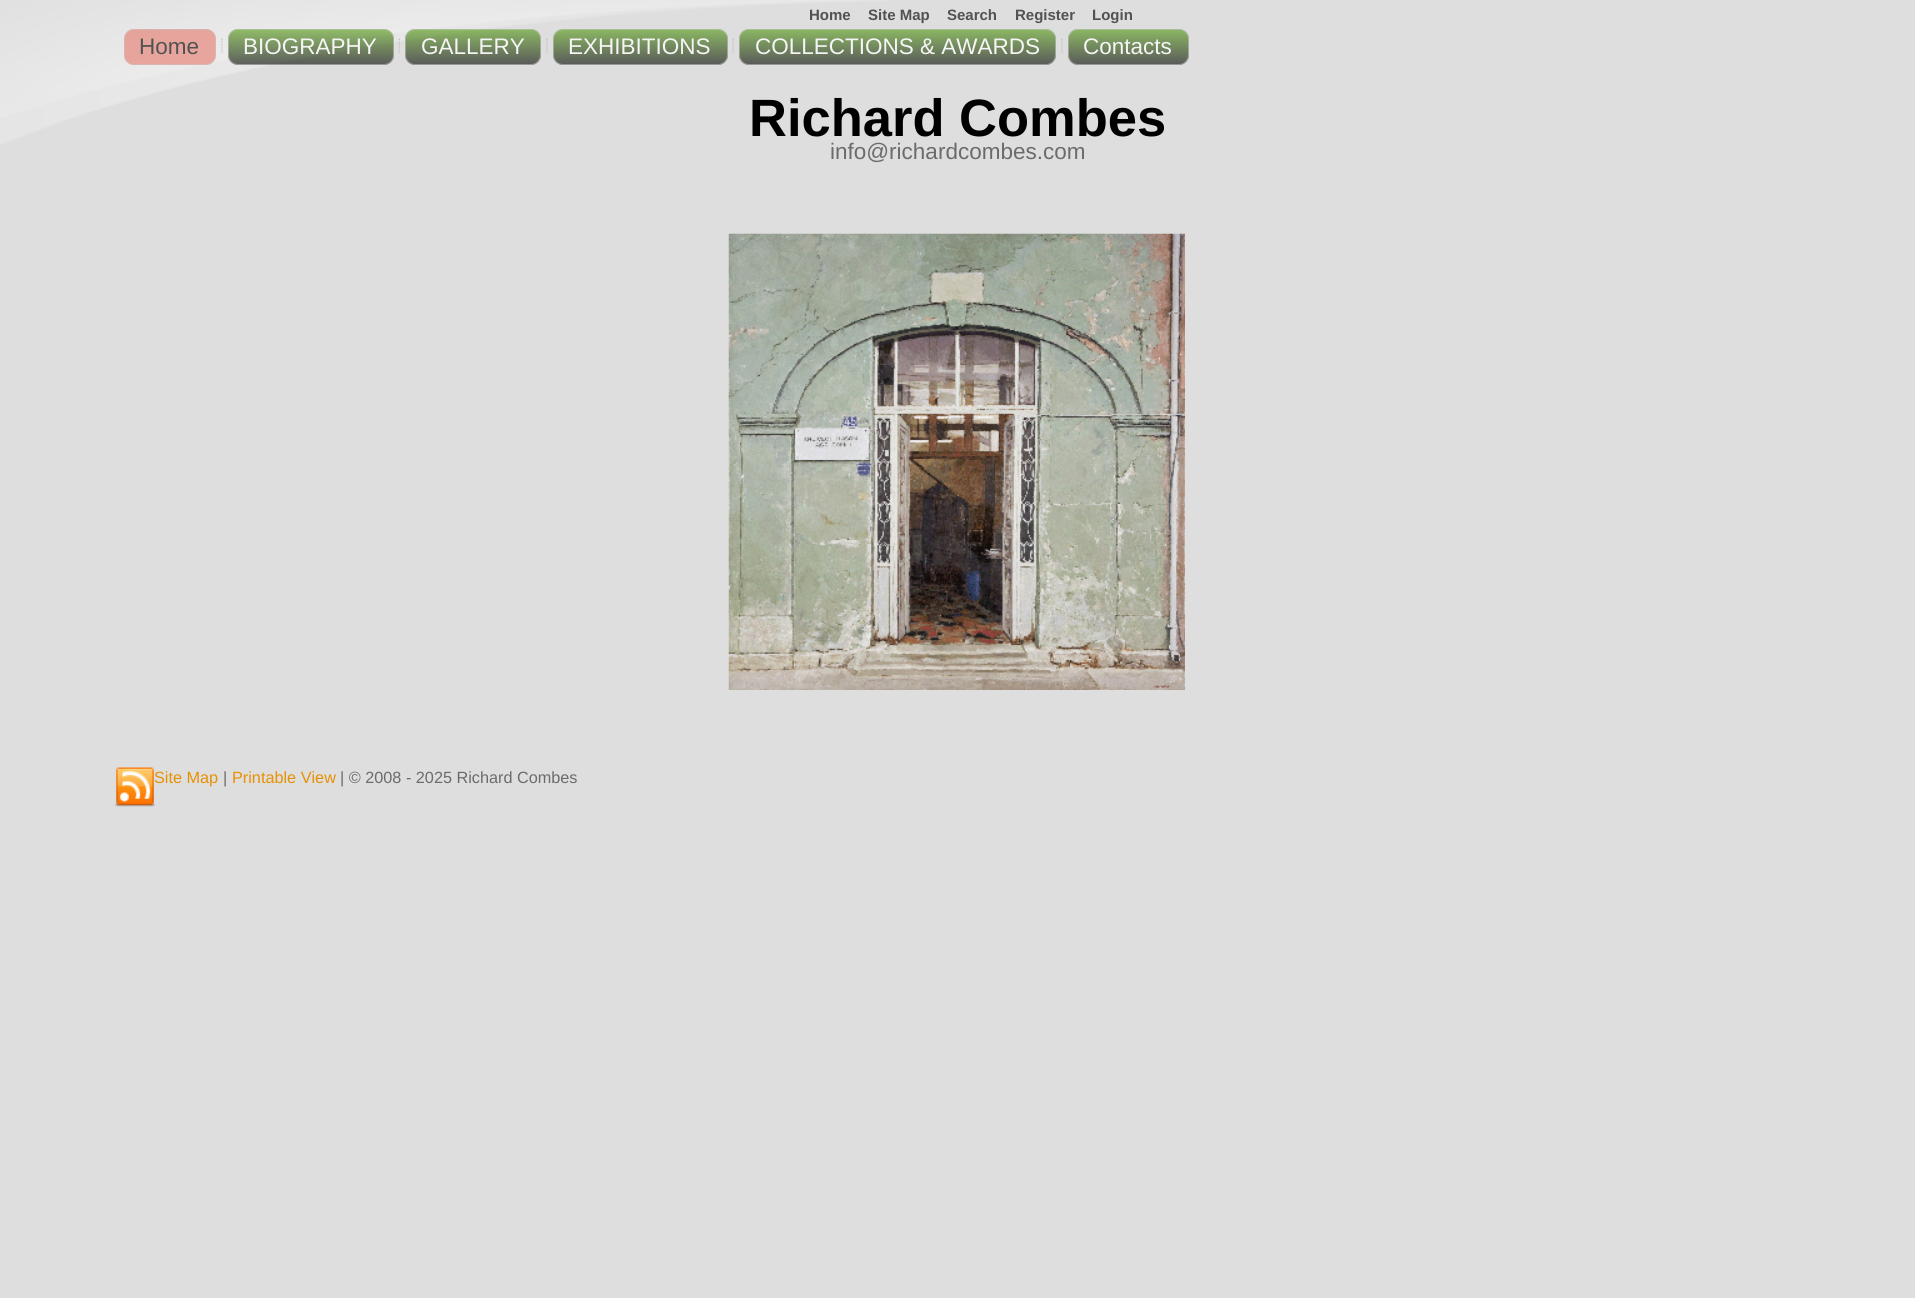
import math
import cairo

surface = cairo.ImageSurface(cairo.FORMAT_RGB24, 1915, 1298)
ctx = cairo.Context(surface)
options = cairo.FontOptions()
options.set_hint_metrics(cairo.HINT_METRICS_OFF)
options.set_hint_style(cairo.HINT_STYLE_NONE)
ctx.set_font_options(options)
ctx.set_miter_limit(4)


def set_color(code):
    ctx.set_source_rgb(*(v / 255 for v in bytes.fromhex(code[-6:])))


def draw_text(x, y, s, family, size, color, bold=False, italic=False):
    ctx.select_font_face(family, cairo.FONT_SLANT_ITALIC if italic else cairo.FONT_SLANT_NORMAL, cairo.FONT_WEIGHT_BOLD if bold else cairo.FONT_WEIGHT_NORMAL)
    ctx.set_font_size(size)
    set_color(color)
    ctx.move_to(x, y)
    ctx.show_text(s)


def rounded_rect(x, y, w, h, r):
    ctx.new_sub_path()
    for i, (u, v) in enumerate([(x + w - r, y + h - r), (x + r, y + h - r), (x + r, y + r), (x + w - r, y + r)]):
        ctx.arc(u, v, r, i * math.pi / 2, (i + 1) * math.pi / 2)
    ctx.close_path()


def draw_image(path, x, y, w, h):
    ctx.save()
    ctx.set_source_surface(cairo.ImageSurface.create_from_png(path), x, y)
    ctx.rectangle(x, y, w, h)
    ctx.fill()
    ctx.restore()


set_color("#dedede")
ctx.paint()
draw_image("assets/img1.png", 0, 0, 891, 145)
draw_text(809, 20, "Home", "Liberation Sans", 15, "#525252", bold=True)
draw_text(868, 20, "Site Map", "Liberation Sans", 15, "#525252", bold=True)
draw_text(947, 20, "Search", "Liberation Sans", 15, "#525252", bold=True)
draw_text(1015, 20, "Register", "Liberation Sans", 15, "#525252", bold=True)
draw_text(1092, 20, "Login", "Liberation Sans", 15, "#525252", bold=True)
ctx.set_source_rgba(0.902, 0.376, 0.318, 0.5)
rounded_rect(124, 29, 92, 36, 10)
ctx.fill()
rounded_rect(124.5, 29.5, 91, 35, 9.5)
ctx.set_source_rgba(0.78, 0.78, 0.78, 0.5)
ctx.set_line_width(1)
ctx.stroke()
draw_text(139, 54, "Home", "Liberation Sans", 22.5, "#525252")
draw_image("assets/img2.png", 221, 38, 2, 15)
gradient = cairo.LinearGradient(311, 29, 311, 65)
gradient.add_color_stop_rgba(0, 0.329, 0.62, 0.063, 0.6)
gradient.add_color_stop_rgba(1, 0, 0, 0, 0.6)
ctx.set_source(gradient)
rounded_rect(228, 29, 166, 36, 10)
ctx.fill()
rounded_rect(228.5, 29.5, 165, 35, 9.5)
ctx.set_source_rgba(0.749, 0.749, 0.749, 0.6)
ctx.stroke()
draw_text(243, 54, "BIOGRAPHY", "Liberation Sans", 22.5, "#f5f5f5")
draw_image("assets/img3.png", 398, 38, 2, 15)
gradient = cairo.LinearGradient(473, 29, 473, 65)
gradient.add_color_stop_rgba(0, 0.329, 0.62, 0.063, 0.6)
gradient.add_color_stop_rgba(1, 0, 0, 0, 0.6)
ctx.set_source(gradient)
rounded_rect(405, 29, 136, 36, 10)
ctx.fill()
rounded_rect(405.5, 29.5, 135, 35, 9.5)
ctx.set_source_rgba(0.749, 0.749, 0.749, 0.6)
ctx.stroke()
draw_text(421, 54, "GALLERY", "Liberation Sans", 22.5, "#f5f5f5")
draw_image("assets/img4.png", 546, 38, 2, 15)
gradient = cairo.LinearGradient(640, 29, 640, 65)
gradient.add_color_stop_rgba(0, 0.545, 0.722, 0.384, 1)
gradient.add_color_stop_rgba(1, 0.349, 0.349, 0.349, 1)
ctx.set_source(gradient)
rounded_rect(553, 29, 175, 36, 10)
ctx.fill()
rounded_rect(553.5, 29.5, 174, 35, 9.5)
ctx.set_source_rgba(0.749, 0.749, 0.749, 0.6)
ctx.stroke()
draw_text(568, 54, "EXHIBITIONS", "Liberation Sans", 22.5, "#f5f5f5")
draw_image("assets/img5.png", 732, 38, 2, 15)
gradient = cairo.LinearGradient(898, 29, 898, 65)
gradient.add_color_stop_rgba(0, 0.545, 0.722, 0.384, 1)
gradient.add_color_stop_rgba(1, 0.349, 0.349, 0.349, 1)
ctx.set_source(gradient)
rounded_rect(739, 29, 317, 36, 10)
ctx.fill()
rounded_rect(739.5, 29.5, 316, 35, 9.5)
ctx.set_source_rgba(0.749, 0.749, 0.749, 0.6)
ctx.stroke()
draw_text(755, 54, "COLLECTIONS & AWARDS", "Liberation Sans", 22.5, "#f5f5f5")
draw_image("assets/img4.png", 1061, 38, 2, 15)
gradient = cairo.LinearGradient(1128, 29, 1128, 65)
gradient.add_color_stop_rgba(0, 0.545, 0.722, 0.384, 1)
gradient.add_color_stop_rgba(1, 0.349, 0.349, 0.349, 1)
ctx.set_source(gradient)
rounded_rect(1068, 29, 121, 36, 10)
ctx.fill()
rounded_rect(1068.5, 29.5, 120, 35, 9.5)
ctx.set_source_rgba(0.749, 0.749, 0.749, 0.6)
ctx.stroke()
draw_text(1083, 54, "Contacts", "Liberation Sans", 22.5, "#f5f5f5")
draw_text(749, 136, "Richard Combes", "Liberation Sans", 52.5, "#000000", bold=True)
draw_text(830, 159, "info@richardcombes.com", "Liberation Sans", 22.5, "#6b6b6b")
draw_image("assets/img6.png", 728, 233, 457, 457)
draw_image("assets/img7.png", 115, 767, 40, 40)
draw_text(154, 783, "Site Map", "Liberation Sans", 16.25, "#e79004")
draw_text(223, 783, "|", "Liberation Sans", 16.25, "#6b6b6b")
draw_text(232, 783, "Printable View", "Liberation Sans", 16.25, "#e79004")
draw_text(340, 783, "| © 2008 - 2025 Richard Combes", "Liberation Sans", 16.25, "#6b6b6b")
surface.write_to_png("output.png")
